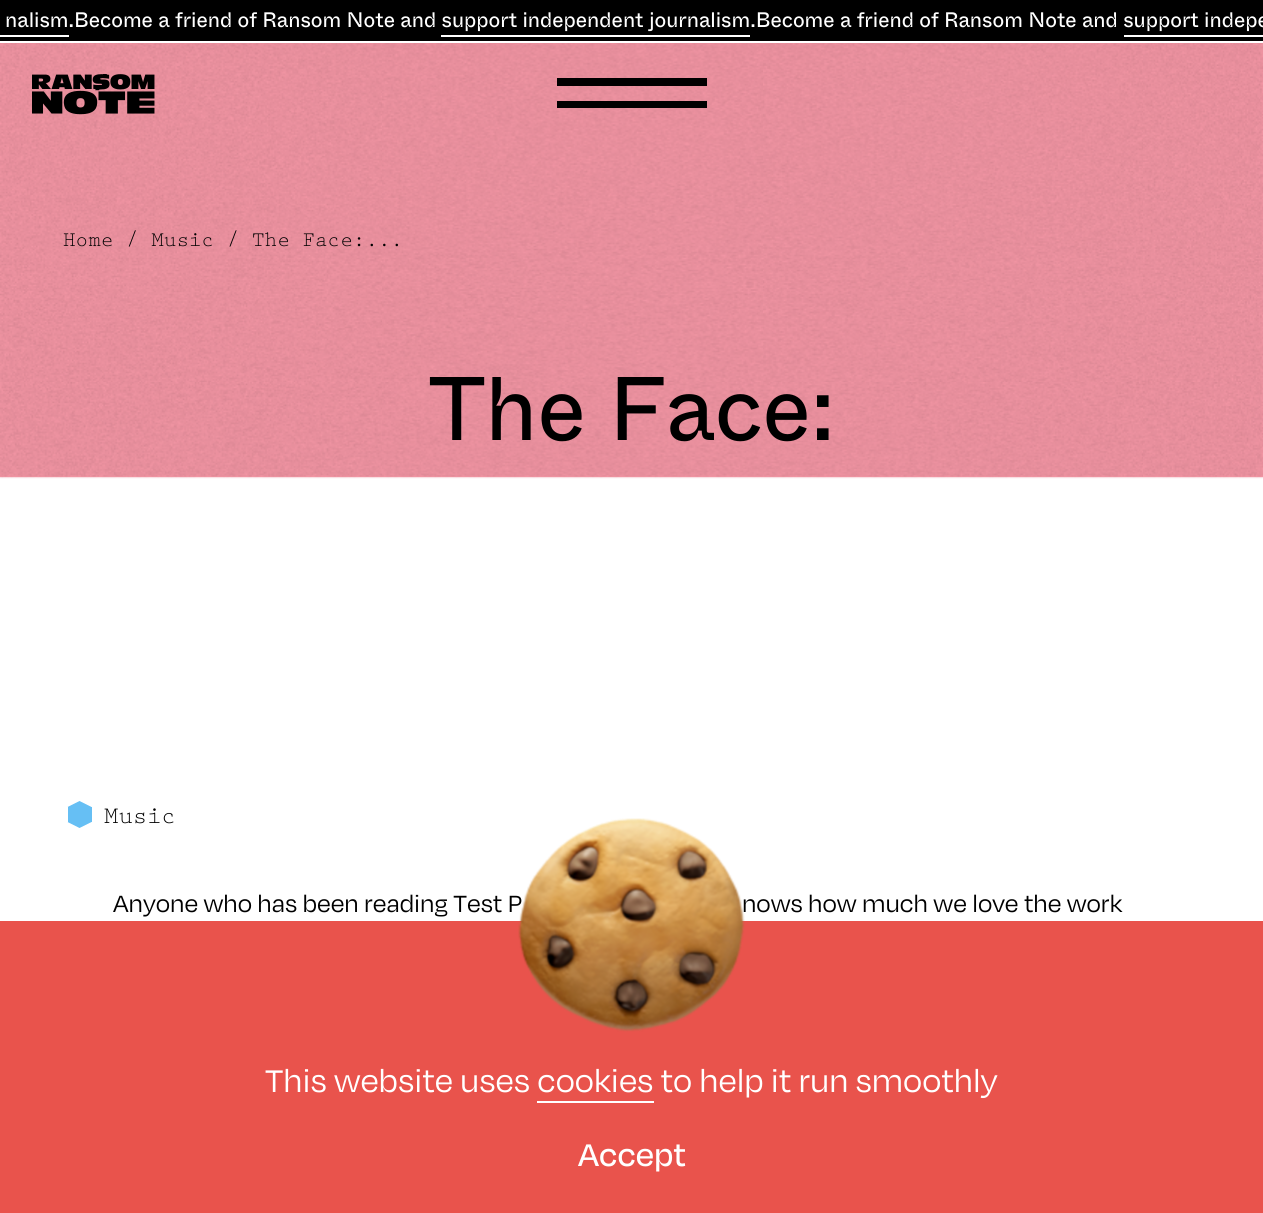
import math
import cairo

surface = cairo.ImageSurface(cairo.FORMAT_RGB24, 1263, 1213)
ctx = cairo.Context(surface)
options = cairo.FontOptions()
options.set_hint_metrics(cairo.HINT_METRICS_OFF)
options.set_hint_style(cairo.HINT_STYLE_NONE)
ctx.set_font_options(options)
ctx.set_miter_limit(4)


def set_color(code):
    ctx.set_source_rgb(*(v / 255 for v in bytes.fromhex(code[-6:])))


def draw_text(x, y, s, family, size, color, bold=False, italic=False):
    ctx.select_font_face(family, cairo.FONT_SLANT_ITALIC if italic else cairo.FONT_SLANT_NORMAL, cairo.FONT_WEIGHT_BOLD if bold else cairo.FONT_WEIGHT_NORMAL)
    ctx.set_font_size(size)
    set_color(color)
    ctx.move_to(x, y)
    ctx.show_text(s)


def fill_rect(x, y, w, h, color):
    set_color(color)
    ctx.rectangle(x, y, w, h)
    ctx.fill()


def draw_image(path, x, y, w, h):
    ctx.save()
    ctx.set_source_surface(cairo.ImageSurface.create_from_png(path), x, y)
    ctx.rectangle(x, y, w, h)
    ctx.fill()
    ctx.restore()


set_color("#ffffff")
ctx.paint()
fill_rect(0, 0, 1263, 41, "#000000")
draw_text(5, 27, "nalism.Become a friend of Ransom Note and support independent journalism.Become a friend of Ransom Note and support indepe", "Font", 21, "#ffffff")
fill_rect(0, 35, 69, 2, "#ffffff")
fill_rect(441, 35, 309, 2, "#ffffff")
fill_rect(1124, 35, 139, 2, "#ffffff")
fill_rect(0, 43, 1263, 434, "#fd9cab")
draw_image("assets/img2.png", 0, 43, 1263, 436)
draw_image("assets/img1.png", 32, 74, 123, 41)
fill_rect(557, 78, 150, 8, "#000000")
fill_rect(557, 101, 150, 7, "#000000")
draw_text(63, 246, "Home / Music / The Face:...", "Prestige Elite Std", 21, "#000000")
draw_text(429, 440, "The Face:", "Font", 90, "#000000")
fill_rect(68, 807, 24, 15, "#66bff4")
ctx.new_path()
ctx.move_to(91.5, 807)
ctx.line_to(67.5, 807)
ctx.line_to(79.5, 801)
ctx.close_path()
ctx.move_to(67.5, 822)
ctx.line_to(91.5, 822)
ctx.line_to(79.5, 828)
ctx.close_path()
ctx.fill()
draw_text(104, 823, "Music", "Prestige Elite Std", 24, "#000000")
draw_text(113, 912, "Anyone who has been reading Test P", "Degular", 27, "#000000")
draw_text(742, 912, "nows how much we love the work", "Degular", 27, "#000000")
fill_rect(0, 921, 1263, 292, "#e9534c")
draw_image("assets/img3.png", 518, 818, 227, 214)
draw_text(265, 1092, "This website uses cookies to help it run smoothly", "Degular", 36, "#ffffff")
fill_rect(537, 1101, 117, 2, "#ffffff")
draw_text(578, 1166, "Accept", "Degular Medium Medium", 36, "#ffffff")
surface.write_to_png("output.png")
